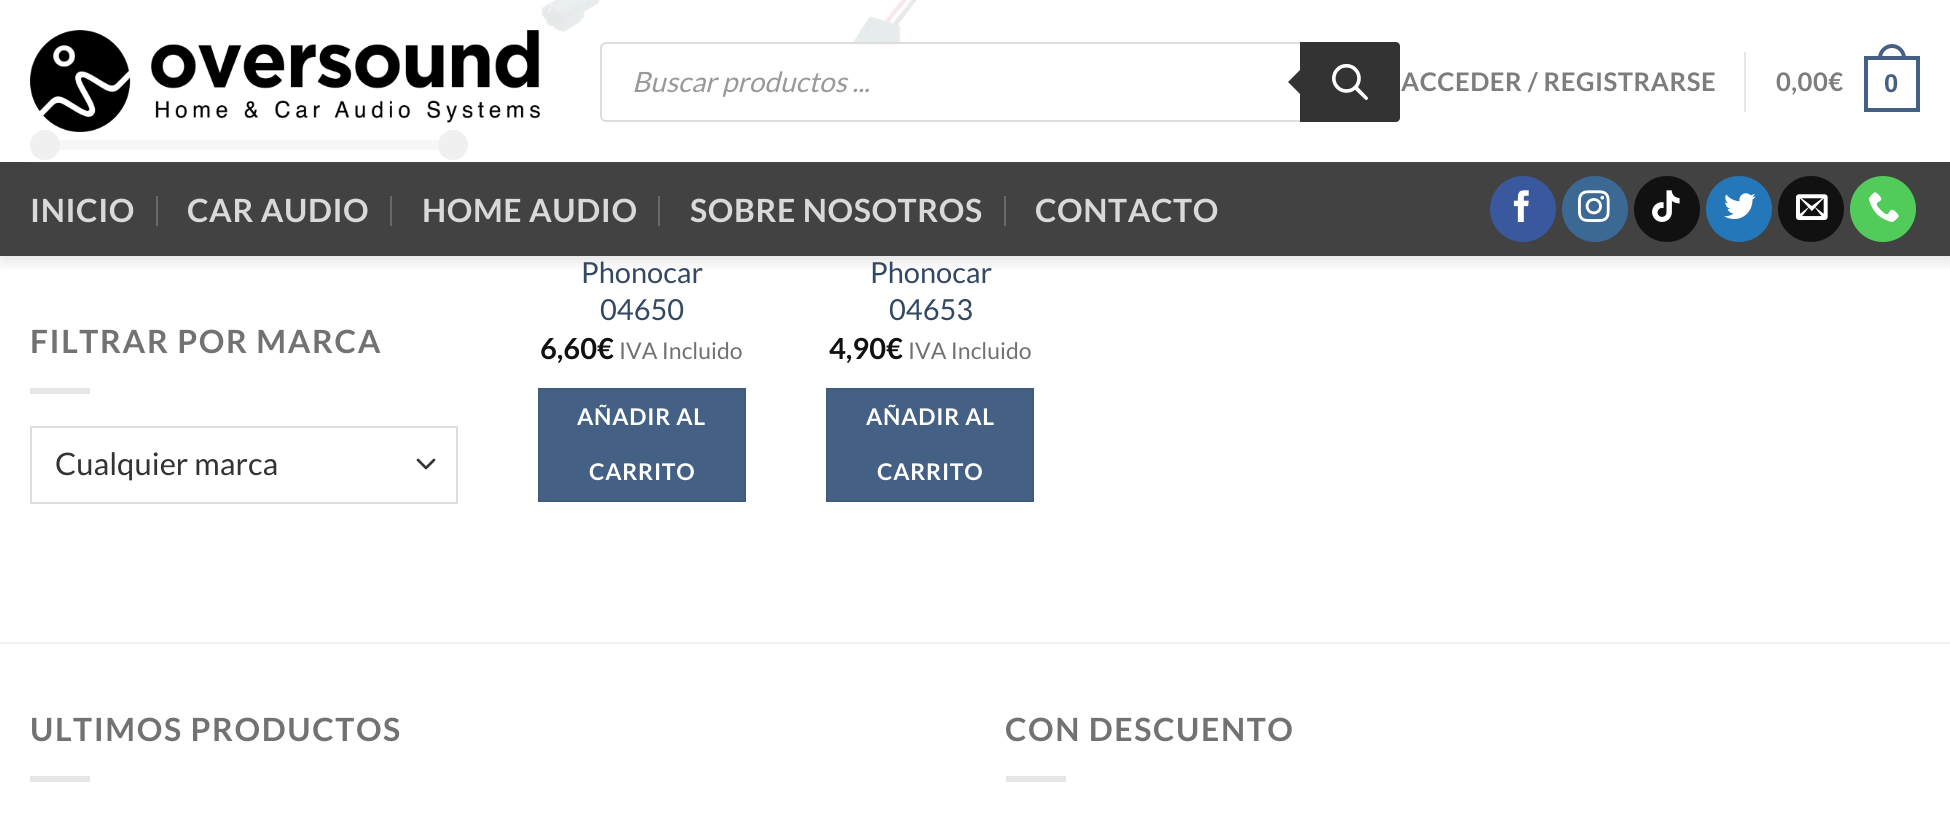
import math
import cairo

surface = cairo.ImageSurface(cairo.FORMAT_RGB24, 1950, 834)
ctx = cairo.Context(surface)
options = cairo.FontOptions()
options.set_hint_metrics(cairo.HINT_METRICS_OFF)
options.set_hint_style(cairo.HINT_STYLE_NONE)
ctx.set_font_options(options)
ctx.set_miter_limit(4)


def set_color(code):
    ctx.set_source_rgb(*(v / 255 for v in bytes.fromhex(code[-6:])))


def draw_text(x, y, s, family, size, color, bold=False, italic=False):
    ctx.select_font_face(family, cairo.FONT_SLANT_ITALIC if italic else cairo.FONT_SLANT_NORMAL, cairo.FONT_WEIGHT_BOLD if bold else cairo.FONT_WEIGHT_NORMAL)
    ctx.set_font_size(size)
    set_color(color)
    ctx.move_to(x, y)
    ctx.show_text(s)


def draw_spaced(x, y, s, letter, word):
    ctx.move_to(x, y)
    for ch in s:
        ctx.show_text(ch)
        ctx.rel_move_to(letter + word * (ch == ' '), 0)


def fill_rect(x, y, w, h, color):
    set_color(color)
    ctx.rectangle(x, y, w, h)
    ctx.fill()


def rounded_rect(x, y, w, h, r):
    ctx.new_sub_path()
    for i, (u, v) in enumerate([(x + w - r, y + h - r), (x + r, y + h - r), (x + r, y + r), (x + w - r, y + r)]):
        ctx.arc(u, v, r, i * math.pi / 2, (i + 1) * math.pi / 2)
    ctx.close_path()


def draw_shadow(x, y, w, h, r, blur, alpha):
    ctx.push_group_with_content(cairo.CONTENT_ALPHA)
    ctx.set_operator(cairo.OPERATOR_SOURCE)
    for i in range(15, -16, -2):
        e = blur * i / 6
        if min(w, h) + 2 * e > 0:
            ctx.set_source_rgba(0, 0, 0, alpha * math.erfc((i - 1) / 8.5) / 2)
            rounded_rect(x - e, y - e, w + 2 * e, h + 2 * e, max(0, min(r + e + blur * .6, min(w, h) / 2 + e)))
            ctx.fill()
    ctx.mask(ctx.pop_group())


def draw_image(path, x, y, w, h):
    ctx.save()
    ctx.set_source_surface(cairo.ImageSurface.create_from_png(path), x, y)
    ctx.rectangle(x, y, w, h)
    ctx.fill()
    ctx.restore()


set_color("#ffffff")
ctx.paint()
ctx.set_source_rgba(0.941, 0.941, 0.941, 0.5)
rounded_rect(30, 140, 428, 10, 5)
ctx.fill()
set_color("#f0f0f0")
ctx.arc(45, 145, 15, 0, 2 * math.pi)
ctx.fill()
ctx.arc(453, 145, 15, 0, 2 * math.pi)
ctx.fill()
draw_image("assets/img9.png", 541, 0, 60, 33)
draw_image("assets/img10.png", 828, 0, 91, 42)
ctx.save()
ctx.rectangle(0, 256, 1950, 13)
ctx.clip()
set_color("#000000")
draw_shadow(2, 2, 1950, 256, 0, 10, 0.15)
ctx.restore()
draw_image("assets/img1.png", 30, 30, 510, 102)
rounded_rect(601, 43, 798, 78, 5)
set_color("#dddddd")
ctx.stroke()
draw_text(632, 92, "Buscar productos ...", "Lato", 28, "#999999", italic=True)
set_color("#333333")
ctx.new_path()
ctx.move_to(1300, 42)
ctx.line_to(1396, 42)
ctx.curve_to(1398, 42, 1400, 44, 1400, 46)
ctx.line_to(1400, 118)
ctx.curve_to(1400, 120, 1398, 122, 1396, 122)
ctx.line_to(1300, 122)
ctx.close_path()
ctx.fill()
ctx.new_path()
ctx.move_to(1304, 66)
ctx.line_to(1304, 98)
ctx.line_to(1288, 82)
ctx.close_path()
ctx.fill()
draw_image("assets/img2.png", 1332, 64, 36, 36)
ctx.select_font_face("Lato", cairo.FONT_SLANT_NORMAL, cairo.FONT_WEIGHT_BOLD)
ctx.set_font_size(25.6)
set_color("#7d7d7d")
draw_spaced(1401, 91, "ACCEDER / REGISTRARSE", 0.5, 0)
fill_rect(1744, 52, 2, 60, "#e6e6e6")
set_color("#7d7d7d")
draw_spaced(1776, 91, "0,00€", 0.5, 0)
ctx.rectangle(1866, 58, 52, 52)
set_color("#446084")
ctx.set_line_width(4)
ctx.stroke()
ctx.set_fill_rule(cairo.FILL_RULE_EVEN_ODD)
ctx.new_path()
ctx.move_to(1892, 44)
ctx.curve_to(1899.5, 44, 1906, 50.5, 1906, 58)
ctx.line_to(1906, 60)
ctx.line_to(1878, 60)
ctx.line_to(1878, 58)
ctx.curve_to(1878, 50.5, 1884.5, 44, 1892, 44)
ctx.close_path()
ctx.move_to(1892, 48)
ctx.curve_to(1897.5, 48, 1902, 52.5, 1902, 58)
ctx.line_to(1902, 60)
ctx.line_to(1882, 60)
ctx.line_to(1882, 58)
ctx.curve_to(1882, 52.5, 1886.5, 48, 1892, 48)
ctx.close_path()
ctx.fill()
ctx.select_font_face("Liberation Sans", cairo.FONT_SLANT_NORMAL, cairo.FONT_WEIGHT_BOLD)
draw_spaced(1884, 92, "0", 0.5, 0)
fill_rect(0, 162, 1950, 94, "#424242")
fill_rect(30, 162, 1890, 2, "#474747")
ctx.select_font_face("Lato", cairo.FONT_SLANT_NORMAL, cairo.FONT_WEIGHT_BOLD)
ctx.set_font_size(32)
set_color("#d9d9d9")
draw_spaced(30, 222, "INICIO", 0.6, 0)
fill_rect(156, 196, 2, 30, "#686868")
set_color("#d9d9d9")
draw_spaced(187, 222, "CAR AUDIO", 0.6, 0)
fill_rect(390, 196, 2, 30, "#686868")
set_color("#d9d9d9")
draw_spaced(422, 222, "HOME AUDIO", 0.6, 0)
fill_rect(658, 196, 2, 30, "#686868")
set_color("#d9d9d9")
draw_spaced(690, 222, "SOBRE NOSOTROS", 0.6, 0)
fill_rect(1004, 196, 2, 30, "#686868")
set_color("#d9d9d9")
draw_spaced(1035, 222, "CONTACTO", 0.6, 0)
set_color("#3a589d")
ctx.new_path()
ctx.arc(1523, 209, 32, 0, 2 * math.pi)
ctx.fill_preserve()
ctx.set_line_width(2)
ctx.stroke()
draw_image("assets/img3.png", 1513, 190, 16, 32)
set_color("#3b6994")
ctx.arc(1595, 209, 32, 0, 2 * math.pi)
ctx.fill_preserve()
ctx.stroke()
draw_image("assets/img4.png", 1578, 190, 32, 32)
set_color("#111111")
ctx.arc(1667, 209, 32, 0, 2 * math.pi)
ctx.fill_preserve()
ctx.stroke()
draw_image("assets/img5.png", 1652, 190, 28, 32)
set_color("#2478ba")
ctx.arc(1739, 209, 32, 0, 2 * math.pi)
ctx.fill_preserve()
ctx.stroke()
draw_image("assets/img6.png", 1724, 193, 32, 26)
set_color("#111111")
ctx.arc(1811, 209, 32, 0, 2 * math.pi)
ctx.fill_preserve()
ctx.stroke()
draw_image("assets/img7.png", 1796, 194, 32, 26)
set_color("#51cb5a")
ctx.arc(1883, 209, 32, 0, 2 * math.pi)
ctx.fill_preserve()
ctx.stroke()
draw_image("assets/img8.png", 1869, 192, 30, 30)
set_color("#727272")
draw_spaced(30, 353, "FILTRAR POR MARCA", 1.6, 0)
fill_rect(30, 388, 60, 6, "#e6e6e6")
ctx.new_path()
ctx.move_to(418, 460)
ctx.line_to(426, 468)
ctx.line_to(434, 460)
set_color("#333333")
ctx.set_line_width(2.7)
ctx.set_line_cap(cairo.LINE_CAP_ROUND)
ctx.set_line_join(cairo.LINE_JOIN_ROUND)
ctx.stroke()
ctx.rectangle(31, 427, 426, 76)
set_color("#dddddd")
ctx.set_line_width(2)
ctx.set_line_cap(cairo.LINE_CAP_BUTT)
ctx.set_line_join(cairo.LINE_JOIN_MITER)
ctx.stroke()
draw_text(55, 475, "Cualquier marca", "Lato", 31, "#333333")
draw_text(581, 283, "Phonocar", "Lato", 29, "#334862")
draw_text(600, 320, "04650", "Lato", 29, "#334862")
draw_text(540, 359, "6,60€", "Lato", 29, "#111111", bold=True)
draw_text(619, 359, "IVA Incluido", "Lato", 23, "#727272")
set_color("#446084")
ctx.rectangle(539, 389, 206, 112)
ctx.fill_preserve()
set_color("#415b7d")
ctx.stroke()
ctx.select_font_face("Lato", cairo.FONT_SLANT_NORMAL, cairo.FONT_WEIGHT_BOLD)
set_color("#ffffff")
draw_spaced(577, 425, "AÑADIR AL", 0.75, 0)
draw_spaced(589, 480, "CARRITO", 0.75, 0)
draw_text(870, 283, "Phonocar", "Lato", 29, "#334862")
draw_text(889, 320, "04653", "Lato", 29, "#334862")
draw_text(829, 359, "4,90€", "Lato", 29, "#111111", bold=True)
draw_text(908, 359, "IVA Incluido", "Lato", 23, "#727272")
set_color("#446084")
ctx.rectangle(827, 389, 206, 112)
ctx.fill_preserve()
set_color("#415b7d")
ctx.stroke()
ctx.select_font_face("Lato", cairo.FONT_SLANT_NORMAL, cairo.FONT_WEIGHT_BOLD)
set_color("#ffffff")
draw_spaced(866, 425, "AÑADIR AL", 0.75, 0)
draw_spaced(877, 480, "CARRITO", 0.75, 0)
fill_rect(0, 642, 1950, 2, "#f2f2f2")
ctx.set_font_size(32)
set_color("#727272")
draw_spaced(30, 741, "ULTIMOS PRODUCTOS", 1.6, 0)
fill_rect(30, 776, 60, 6, "#e6e6e6")
set_color("#727272")
draw_spaced(1005, 741, "CON DESCUENTO", 1.6, 0)
fill_rect(1006, 776, 60, 6, "#e6e6e6")
surface.write_to_png("output.png")
